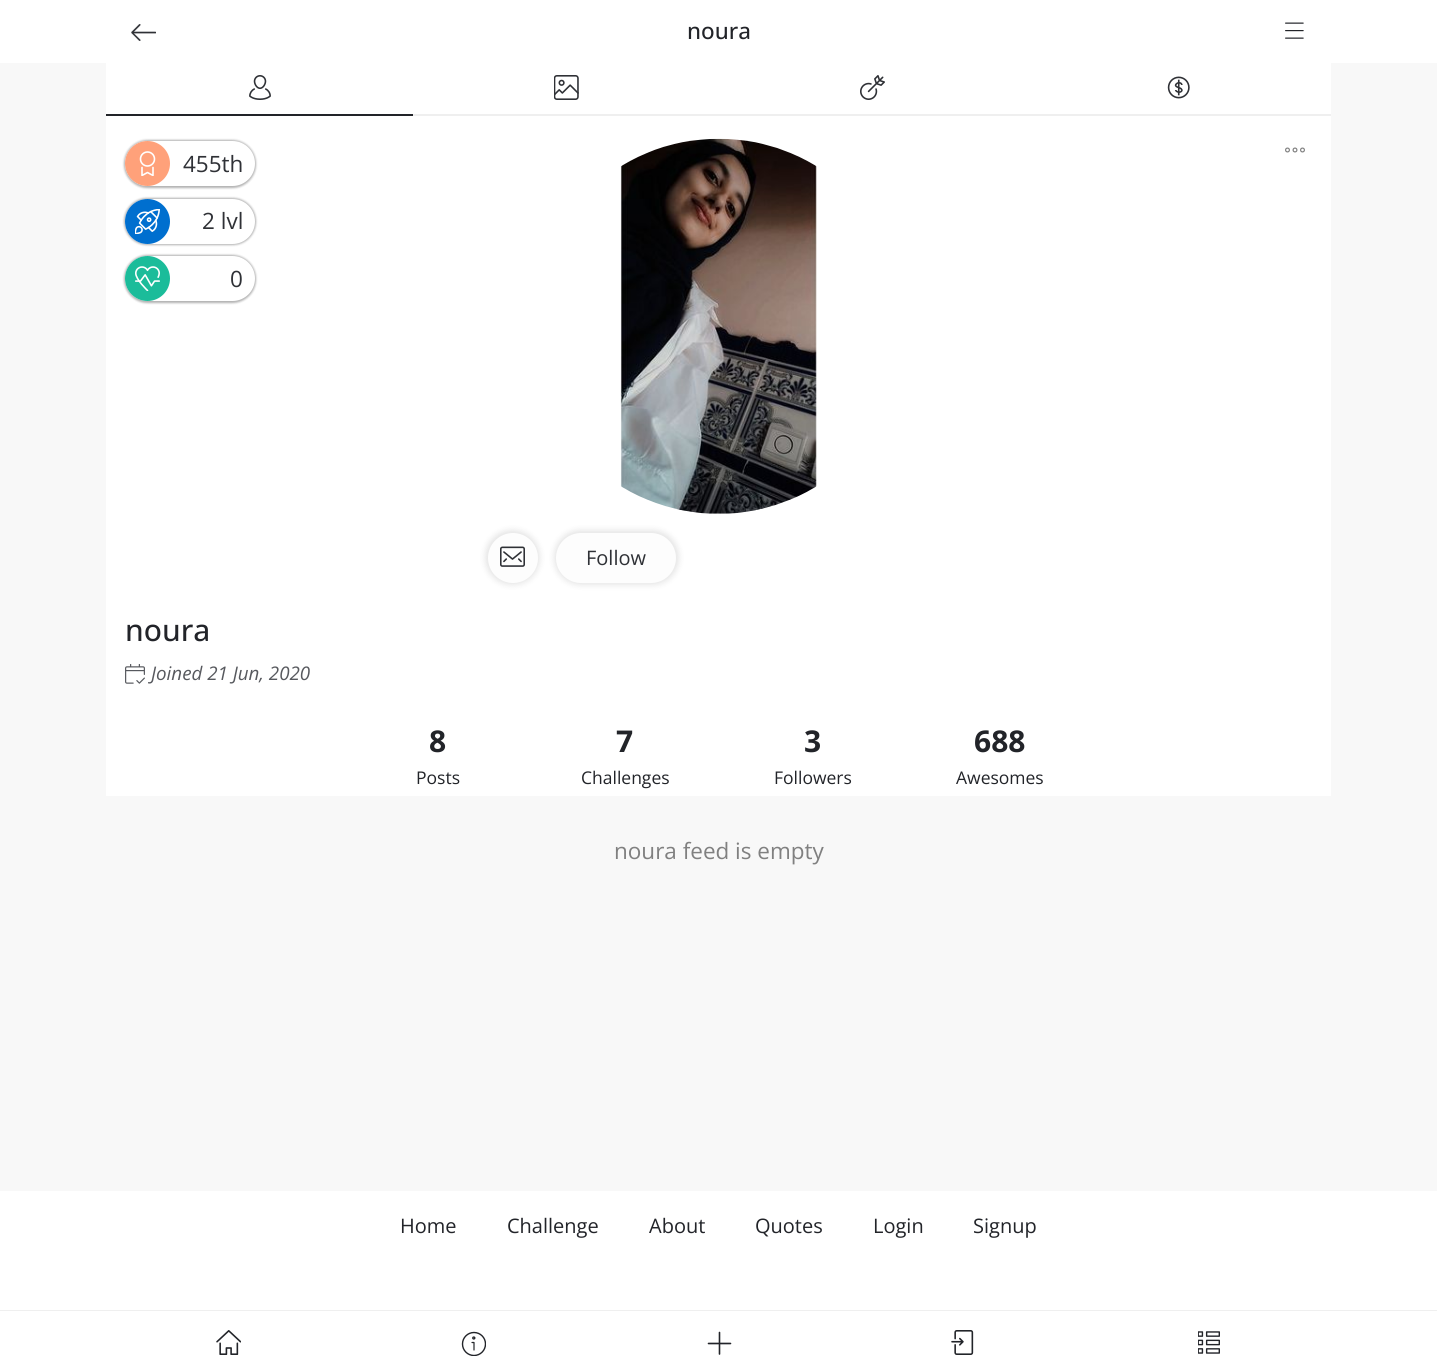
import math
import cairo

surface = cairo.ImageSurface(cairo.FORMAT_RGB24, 1437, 1372)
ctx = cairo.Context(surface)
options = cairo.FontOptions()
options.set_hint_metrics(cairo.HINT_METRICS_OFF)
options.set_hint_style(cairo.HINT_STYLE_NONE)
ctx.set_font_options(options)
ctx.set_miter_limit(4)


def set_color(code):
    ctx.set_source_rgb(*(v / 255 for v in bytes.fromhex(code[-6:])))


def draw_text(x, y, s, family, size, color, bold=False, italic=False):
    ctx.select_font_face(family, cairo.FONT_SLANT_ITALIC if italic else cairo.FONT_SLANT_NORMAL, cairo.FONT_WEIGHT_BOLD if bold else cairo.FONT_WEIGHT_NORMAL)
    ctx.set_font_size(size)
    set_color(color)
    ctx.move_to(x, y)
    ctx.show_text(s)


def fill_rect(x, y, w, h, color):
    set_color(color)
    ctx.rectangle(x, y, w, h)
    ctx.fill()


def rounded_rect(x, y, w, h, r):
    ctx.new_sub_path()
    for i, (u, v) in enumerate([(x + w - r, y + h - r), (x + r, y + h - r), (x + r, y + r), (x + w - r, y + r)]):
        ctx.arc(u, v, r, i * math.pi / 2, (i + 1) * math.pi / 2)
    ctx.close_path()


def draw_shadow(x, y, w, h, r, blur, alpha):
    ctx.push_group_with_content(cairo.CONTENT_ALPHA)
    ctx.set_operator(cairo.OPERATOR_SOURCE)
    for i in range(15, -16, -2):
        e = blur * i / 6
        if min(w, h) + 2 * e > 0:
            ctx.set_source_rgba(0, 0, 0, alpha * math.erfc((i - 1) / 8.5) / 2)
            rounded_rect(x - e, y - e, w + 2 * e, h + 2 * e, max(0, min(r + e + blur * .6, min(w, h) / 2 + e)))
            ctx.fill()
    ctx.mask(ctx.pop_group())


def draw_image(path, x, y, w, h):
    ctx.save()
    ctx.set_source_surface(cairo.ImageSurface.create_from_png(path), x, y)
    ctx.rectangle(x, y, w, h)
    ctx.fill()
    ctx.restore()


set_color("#f8f8f8")
ctx.paint()
fill_rect(0, 0, 1437, 63, "#ffffff")
draw_image("assets/img1.png", 131, 24, 25, 17)
draw_text(687, 39, "noura", "Open Sans Medium", 22.5, "#222429")
draw_image("assets/img2.png", 1285, 22, 19, 17)
fill_rect(106, 63, 1225, 51, "#ffffff")
fill_rect(106, 114, 307, 2, "#222429")
draw_image("assets/img3.png", 249, 75, 22, 25)
fill_rect(413, 114, 918, 2, "#efefef")
draw_image("assets/img4.png", 554, 75, 25, 25)
draw_image("assets/img5.png", 860, 75, 25, 25)
draw_image("assets/img6.png", 1167, 76, 23, 23)
fill_rect(106, 116, 1225, 680, "#ffffff")
draw_image("assets/img7.png", 620, 138, 197, 376)
ctx.arc(1295, 150, 1.9, 0, 2 * math.pi)
set_color("#808080")
ctx.set_line_width(1.2)
ctx.stroke()
ctx.arc(1302.5, 150, 1.9, 0, 2 * math.pi)
ctx.stroke()
ctx.arc(1287.5, 150, 1.9, 0, 2 * math.pi)
ctx.stroke()
set_color("#000000")
draw_shadow(124, 140, 132, 48, 24, 1, 0.3)
set_color("#ffffff")
rounded_rect(125, 141, 130, 45, 22.5)
ctx.fill()
set_color("#ffa17a")
ctx.arc(147.5, 163.5, 22.5, 0, 2 * math.pi)
ctx.fill()
ctx.arc(147.5, 159, 7, 0, 2 * math.pi)
set_color("#ffffff")
ctx.set_line_width(1.6)
ctx.stroke()
ctx.save()
ctx.rectangle(135, 151, 25, 25)
ctx.clip()
ctx.new_path()
ctx.move_to(153, 167.5)
ctx.line_to(153, 175.5)
ctx.line_to(147.5, 172.5)
ctx.line_to(142, 175.5)
ctx.line_to(142, 167.5)
ctx.set_line_cap(cairo.LINE_CAP_ROUND)
ctx.set_line_join(cairo.LINE_JOIN_ROUND)
ctx.stroke()
ctx.restore()
draw_text(183, 172, "455th", "Open Sans", 22.5, "#2f3136")
set_color("#000000")
draw_shadow(124, 198, 132, 47, 23.5, 1, 0.3)
set_color("#ffffff")
rounded_rect(125, 199, 130, 45, 22.5)
ctx.fill()
set_color("#006fcf")
ctx.arc(147.5, 221.5, 22.5, 0, 2 * math.pi)
ctx.fill()
draw_image("assets/img8.png", 135, 209, 25, 25)
draw_text(202, 229, "2 lvl", "Open Sans", 22.5, "#2f3136")
set_color("#000000")
draw_shadow(124, 255, 132, 48, 24, 1, 0.3)
set_color("#ffffff")
rounded_rect(125, 256, 130, 45, 22.5)
ctx.fill()
set_color("#1bbc9a")
ctx.arc(147.5, 278.5, 22.5, 0, 2 * math.pi)
ctx.fill()
draw_image("assets/img9.png", 135, 266, 25, 25)
draw_text(230, 287, "0", "Open Sans", 22.5, "#2f3136")
set_color("#000000")
draw_shadow(485, 530, 55, 55, 27.5, 3, 0.1)
set_color("#fdfdfd")
ctx.arc(513, 558, 25, 0, 2 * math.pi)
ctx.fill()
draw_image("assets/img10.png", 500, 546, 25, 21)
set_color("#000000")
draw_shadow(554, 530, 125, 55, 27.5, 3, 0.1)
set_color("#fdfdfd")
rounded_rect(556, 533, 120, 50, 25)
ctx.fill()
draw_text(586, 565, "Follow", "Open Sans", 20, "#2f3136")
draw_text(125, 641, "noura", "Open Sans Medium", 30, "#222429")
draw_image("assets/img11.png", 125, 664, 20, 20)
draw_text(151, 680, "Joined 21 Jun, 2020", "Open Sans", 18.75, "#57595e", italic=True)
draw_text(429, 752, "8", "Open Sans", 30, "#222429", bold=True)
draw_text(416, 784, "Posts", "Open Sans", 17.5, "#222429")
draw_text(616, 752, "7", "Open Sans", 30, "#222429", bold=True)
draw_text(581, 784, "Challenges", "Open Sans", 17.5, "#222429")
draw_text(804, 752, "3", "Open Sans", 30, "#222429", bold=True)
draw_text(774, 784, "Followers", "Open Sans", 17.5, "#222429")
draw_text(974, 752, "688", "Open Sans", 30, "#222429", bold=True)
draw_text(956, 784, "Awesomes", "Open Sans", 17.5, "#222429")
draw_text(614, 859, "noura feed is empty", "Open Sans", 22.5, "#808080")
fill_rect(0, 1191, 1437, 181, "#ffffff")
draw_text(400, 1233, "Home", "Open Sans", 20, "#222429")
draw_text(507, 1233, "Challenge", "Open Sans", 20, "#222429")
draw_text(649, 1233, "About", "Open Sans", 20, "#222429")
draw_text(755, 1233, "Quotes", "Open Sans", 20, "#222429")
draw_text(873, 1233, "Login", "Open Sans", 20, "#222429")
draw_text(973, 1233, "Signup", "Open Sans", 20, "#222429")
fill_rect(0, 1310, 1437, 1, "#efefef")
draw_image("assets/img12.png", 216, 1330, 25, 25)
ctx.save()
ctx.rectangle(461, 1331, 25, 25)
ctx.clip()
ctx.arc(474, 1344, 11.5, 0, 2 * math.pi)
set_color("#222429")
ctx.set_line_width(1.4)
ctx.stroke()
ctx.restore()
ctx.arc(473.8, 1338, 1, 0, 2 * math.pi)
set_color("#222429")
ctx.set_line_width(1.4)
ctx.stroke()
ctx.new_path()
ctx.move_to(474, 1350)
ctx.line_to(474, 1342.5)
ctx.line_to(472, 1342.5)
ctx.set_line_width(1.2)
ctx.set_line_cap(cairo.LINE_CAP_ROUND)
ctx.set_line_join(cairo.LINE_JOIN_ROUND)
ctx.stroke()
ctx.new_path()
ctx.move_to(719.5, 1332.5)
ctx.line_to(719.5, 1354)
ctx.move_to(708.5, 1343.5)
ctx.line_to(730.5, 1343.5)
ctx.set_line_width(1.6)
ctx.stroke()
draw_image("assets/img13.png", 951, 1330, 23, 25)
draw_image("assets/img14.png", 1198, 1331, 22, 23)
surface.write_to_png("output.png")
